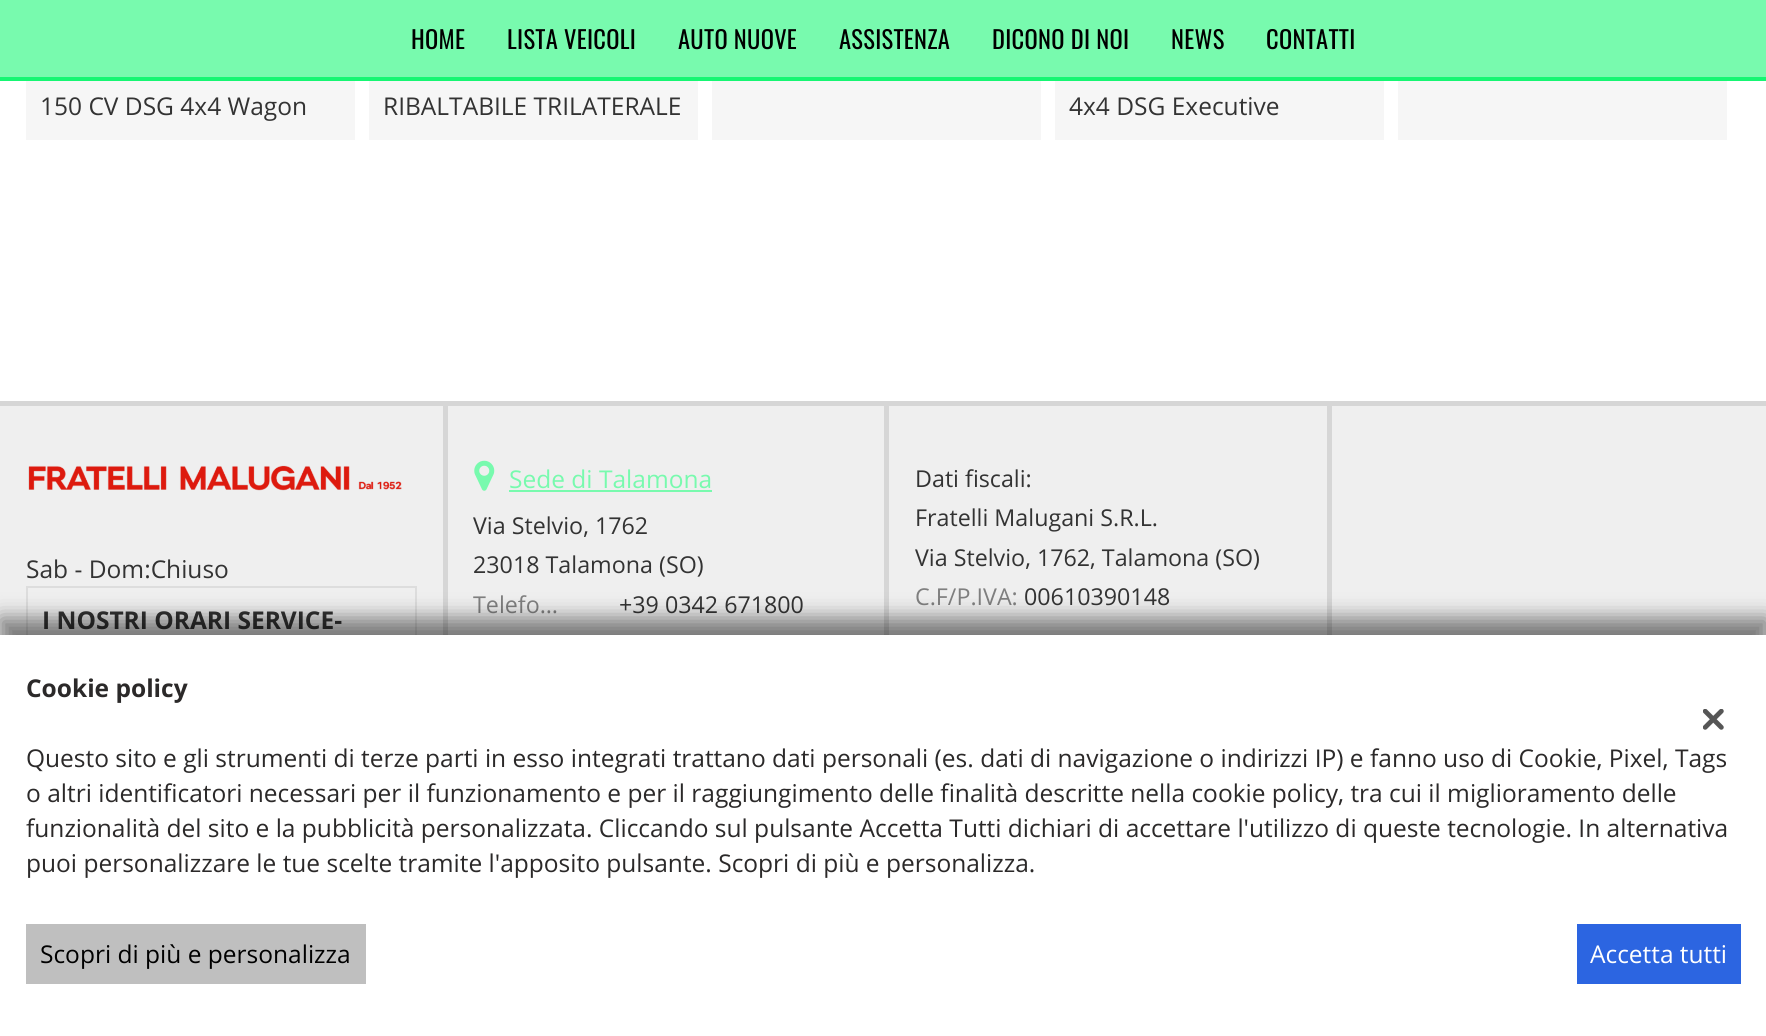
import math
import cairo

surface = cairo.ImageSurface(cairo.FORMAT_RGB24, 1766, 1036)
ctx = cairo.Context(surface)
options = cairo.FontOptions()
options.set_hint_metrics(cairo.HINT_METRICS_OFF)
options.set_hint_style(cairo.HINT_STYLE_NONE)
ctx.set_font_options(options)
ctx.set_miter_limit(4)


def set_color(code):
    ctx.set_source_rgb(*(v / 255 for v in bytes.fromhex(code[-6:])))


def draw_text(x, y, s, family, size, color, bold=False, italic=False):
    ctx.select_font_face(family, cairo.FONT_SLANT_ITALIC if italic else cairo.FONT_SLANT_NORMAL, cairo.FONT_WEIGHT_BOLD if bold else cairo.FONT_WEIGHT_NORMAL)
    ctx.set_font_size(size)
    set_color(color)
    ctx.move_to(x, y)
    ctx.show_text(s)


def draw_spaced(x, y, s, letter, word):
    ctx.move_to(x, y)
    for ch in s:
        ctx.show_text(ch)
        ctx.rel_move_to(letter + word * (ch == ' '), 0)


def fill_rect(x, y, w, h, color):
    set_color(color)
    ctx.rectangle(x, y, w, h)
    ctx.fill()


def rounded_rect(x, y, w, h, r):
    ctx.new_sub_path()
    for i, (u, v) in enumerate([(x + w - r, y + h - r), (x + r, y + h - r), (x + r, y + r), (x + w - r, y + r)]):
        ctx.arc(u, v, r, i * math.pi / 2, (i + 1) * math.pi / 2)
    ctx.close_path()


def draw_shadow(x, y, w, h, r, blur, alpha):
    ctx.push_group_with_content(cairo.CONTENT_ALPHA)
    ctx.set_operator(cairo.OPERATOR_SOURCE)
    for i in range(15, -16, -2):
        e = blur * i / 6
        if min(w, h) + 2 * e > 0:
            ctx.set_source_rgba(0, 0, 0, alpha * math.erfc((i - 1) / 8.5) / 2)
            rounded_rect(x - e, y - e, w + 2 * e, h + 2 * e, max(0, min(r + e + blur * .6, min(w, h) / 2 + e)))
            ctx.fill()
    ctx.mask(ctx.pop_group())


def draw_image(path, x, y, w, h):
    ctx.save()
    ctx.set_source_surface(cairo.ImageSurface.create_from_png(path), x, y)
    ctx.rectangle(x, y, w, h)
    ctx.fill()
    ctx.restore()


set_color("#ffffff")
ctx.paint()
set_color("#16f673")
ctx.new_path()
ctx.move_to(0, 77)
ctx.line_to(0, 81)
ctx.line_to(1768, 81)
ctx.line_to(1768, 4)
ctx.line_to(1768, 77)
ctx.close_path()
ctx.fill()
fill_rect(0, 0, 1766, 77, "#78faae")
ctx.select_font_face("Oswald")
ctx.set_font_size(24.5)
set_color("#000000")
draw_spaced(411, 49, "HOME", 0.3, 0)
draw_spaced(507, 49, "LISTA VEICOLI", 0.3, 0)
draw_spaced(678, 49, "AUTO NUOVE", 0.3, 0)
draw_spaced(839, 49, "ASSISTENZA", 0.3, 0)
draw_spaced(992, 49, "DICONO DI NOI", 0.3, 0)
draw_spaced(1171, 49, "NEWS", 0.3, 0)
draw_spaced(1266, 49, "CONTATTI", 0.3, 0)
fill_rect(26, 81, 329, 59, "#f6f6f6")
draw_text(40, 115, "150 CV DSG 4x4 Wagon", "Open Sans", 24.5, "#333333")
fill_rect(369, 81, 329, 59, "#f6f6f6")
draw_text(383, 115, "RIBALTABILE TRILATERALE", "Open Sans", 24.5, "#333333")
fill_rect(712, 81, 329, 59, "#f6f6f6")
fill_rect(1055, 81, 329, 59, "#f6f6f6")
draw_text(1069, 115, "4x4 DSG Executive", "Open Sans", 24.5, "#333333")
fill_rect(1398, 81, 329, 59, "#f6f6f6")
fill_rect(0, 406, 1766, 229, "#efefef")
fill_rect(0, 401, 1766, 5, "#d6d6d6")
draw_image("assets/img1.png", 28, 465, 374, 26)
draw_text(26, 578, "Sab - Dom:Chiuso", "Open Sans", 24.5, "#333333")
fill_rect(26, 586, 391, 2, "#dddddd")
fill_rect(415, 586, 2, 49, "#dddddd")
fill_rect(26, 586, 2, 49, "#dddddd")
draw_text(42, 629, "I NOSTRI ORARI SERVICE-", "Open Sans", 24.5, "#333333", bold=True)
fill_rect(443, 406, 5, 229, "#d6d6d6")
draw_image("assets/img2.png", 474, 460, 21, 31)
draw_text(509, 488, "Sede di Talamona", "Open Sans", 24.5, "#78faae")
fill_rect(509, 490, 203, 2, "#78faae")
draw_text(473, 534, "Via Stelvio, 1762", "Open Sans", 23.25, "#333333")
draw_text(473, 573, "23018 Talamona (SO)", "Open Sans", 23.25, "#333333")
draw_text(473, 613, "Telefo…", "Open Sans", 23.25, "#808080")
draw_text(619, 613, "+39 0342 671800", "Open Sans", 23.25, "#333333")
fill_rect(884, 406, 5, 229, "#d6d6d6")
draw_text(915, 487, "Dati fiscali:", "Open Sans", 23.25, "#333333")
draw_text(915, 526, "Fratelli Malugani S.R.L.", "Open Sans", 23.25, "#333333")
draw_text(915, 566, "Via Stelvio, 1762, Talamona (SO)", "Open Sans", 23.25, "#333333")
draw_text(915, 605, "C.F/P.IVA:", "Open Sans", 23.25, "#808080")
draw_text(1024, 605, "00610390148", "Open Sans", 23.25, "#333333")
fill_rect(1327, 406, 5, 229, "#d6d6d6")
set_color("#000000")
draw_shadow(0, 618, 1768, 401, 0, 10.5, 0.5)
fill_rect(0, 635, 1766, 401, "#ffffff")
draw_text(26, 697, "Cookie policy", "Open Sans", 24.5, "#2b2929", bold=True)
draw_text(26, 767, "Questo sito e gli strumenti di terze parti in esso integrati trattano dati personali (es. dati di navigazione o indirizzi IP) e fanno uso di Cookie, Pixel, Tags", "Open Sans", 24.5, "#2b2929")
draw_text(26, 802, "o altri identificatori necessari per il funzionamento e per il raggiungimento delle finalità descritte nella cookie policy, tra cui il miglioramento delle", "Open Sans", 24.5, "#2b2929")
draw_text(26, 837, "funzionalità del sito e la pubblicità personalizzata. Cliccando sul pulsante Accetta Tutti dichiari di accettare l'utilizzo di queste tecnologie. In alternativa", "Open Sans", 24.5, "#2b2929")
draw_text(26, 872, "puoi personalizzare le tue scelte tramite l'apposito pulsante. Scopri di più e personalizza.", "Open Sans", 24.5, "#2b2929")
fill_rect(26, 924, 340, 60, "#bfbfbf")
draw_text(40, 963, "Scopri di più e personalizza", "Open Sans", 24.5, "#000000")
fill_rect(1577, 924, 164, 60, "#2c65e1")
draw_text(1590, 963, "Accetta tutti", "Open Sans", 24.5, "#ffffff")
draw_image("assets/img3.png", 1703, 709, 21, 21)
surface.write_to_png("output.png")
